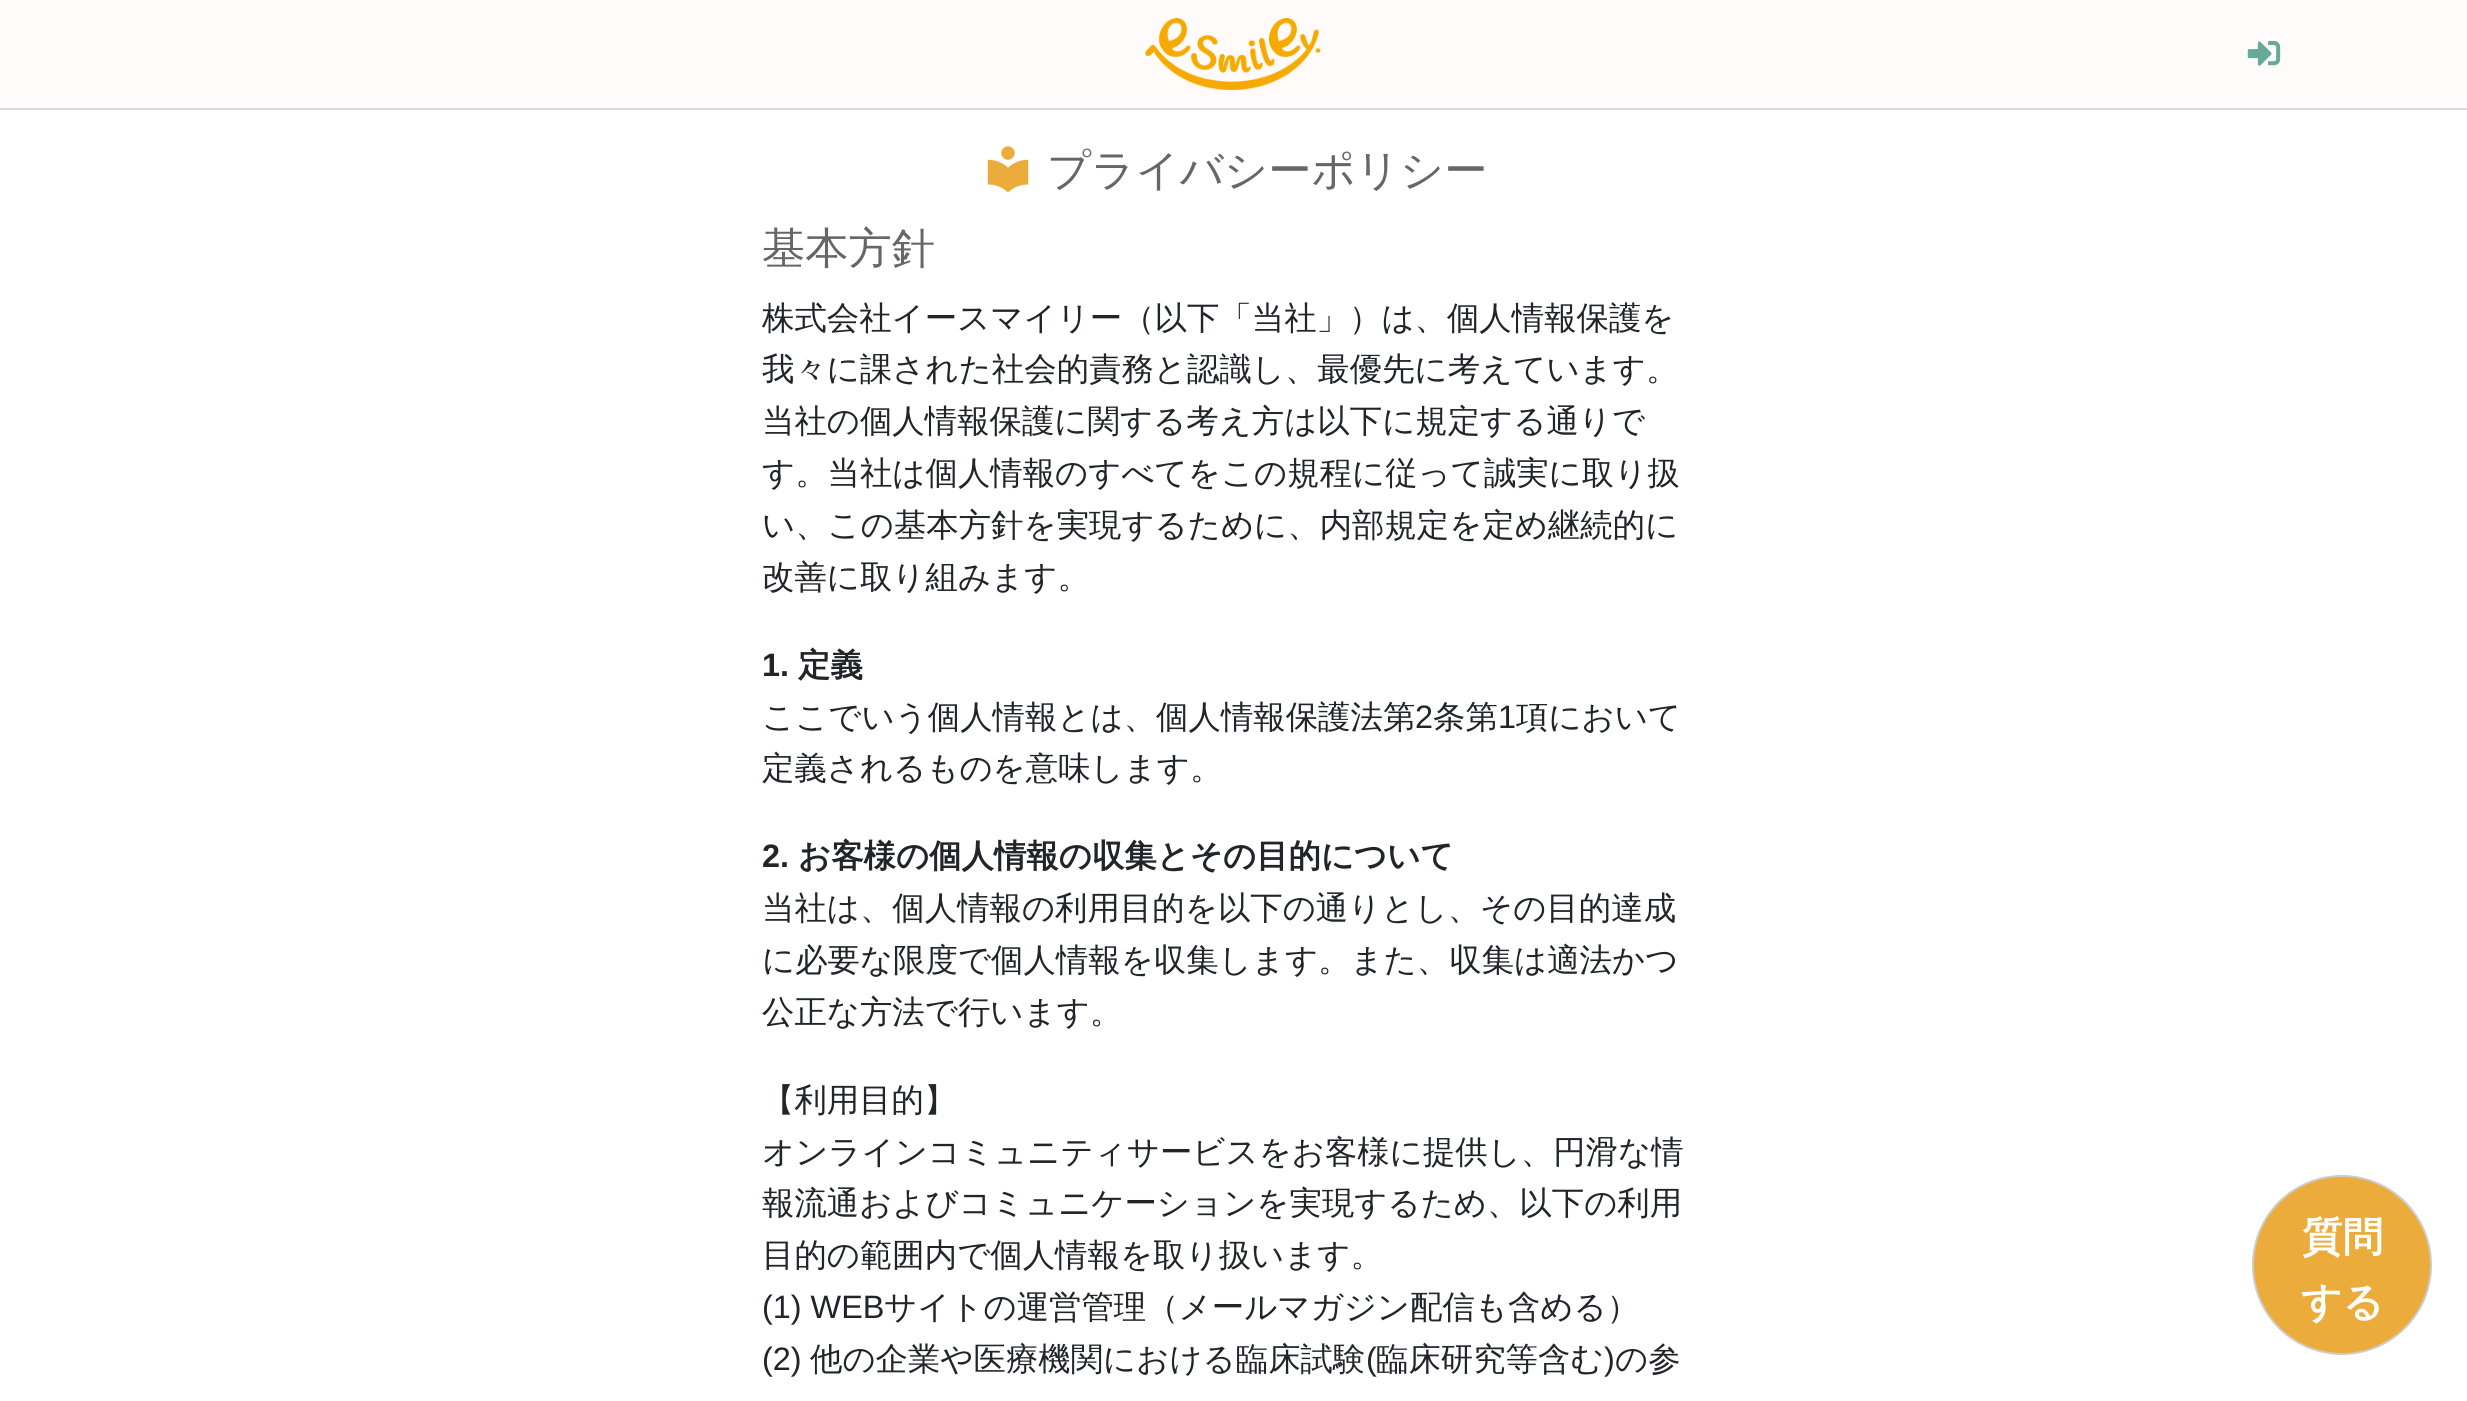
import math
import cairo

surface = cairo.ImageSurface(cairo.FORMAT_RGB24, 2467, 1401)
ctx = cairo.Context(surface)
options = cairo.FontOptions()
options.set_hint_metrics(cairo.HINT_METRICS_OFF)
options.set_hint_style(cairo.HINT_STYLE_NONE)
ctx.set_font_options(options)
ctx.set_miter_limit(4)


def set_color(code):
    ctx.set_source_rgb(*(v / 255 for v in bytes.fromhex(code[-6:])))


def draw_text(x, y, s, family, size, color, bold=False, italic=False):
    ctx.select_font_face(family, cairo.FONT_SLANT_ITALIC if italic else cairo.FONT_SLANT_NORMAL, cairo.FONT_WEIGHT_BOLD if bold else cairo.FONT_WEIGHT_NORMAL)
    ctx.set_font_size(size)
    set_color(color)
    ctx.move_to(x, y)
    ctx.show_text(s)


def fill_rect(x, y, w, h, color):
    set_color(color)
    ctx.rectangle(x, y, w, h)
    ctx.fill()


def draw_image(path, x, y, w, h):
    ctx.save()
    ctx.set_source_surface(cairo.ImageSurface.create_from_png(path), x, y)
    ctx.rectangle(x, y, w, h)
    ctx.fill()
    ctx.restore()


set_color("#ffffff")
ctx.paint()
fill_rect(0, 0, 2467, 108, "#fffbfa")
fill_rect(0, 108, 2467, 2, "#dddddd")
draw_image("assets/img1.png", 1144, 18, 177, 72)
draw_image("assets/img2.png", 2247, 40, 34, 26)
draw_image("assets/img3.png", 987, 146, 42, 47)
draw_text(1047, 185, "プライバシーポリシー", "WenQuanYi Zen Hei Medium", 43.25, "#666666")
draw_text(762, 263, "基本方針", "WenQuanYi Zen Hei Medium", 43.25, "#666666")
draw_text(762, 329, "株式会社イースマイリー（以下「当社」）は、個人情報保護を", "WenQuanYi Zen Hei Medium", 32.4, "#212529")
draw_text(762, 380, "我々に課された社会的責務と認識し、最優先に考えています。", "WenQuanYi Zen Hei Medium", 32.4, "#212529")
draw_text(762, 432, "当社の個人情報保護に関する考え方は以下に規定する通りで", "WenQuanYi Zen Hei Medium", 32.4, "#212529")
draw_text(762, 484, "す。当社は個人情報のすべてをこの規程に従って誠実に取り扱", "WenQuanYi Zen Hei Medium", 32.4, "#212529")
draw_text(762, 536, "い、この基本方針を実現するために、内部規定を定め継続的に", "WenQuanYi Zen Hei Medium", 32.4, "#212529")
draw_text(762, 588, "改善に取り組みます。", "WenQuanYi Zen Hei Medium", 32.4, "#212529")
draw_text(762, 676, "1.", "Liberation Sans", 32.4, "#212529", bold=True)
draw_text(798, 676, "定義", "WenQuanYi Zen Hei", 32.4, "#212529", bold=True)
draw_text(762, 728, "ここでいう個人情報とは、個人情報保護法第", "WenQuanYi Zen Hei Medium", 32.4, "#212529")
draw_text(1415, 728, "2", "Liberation Sans", 32.4, "#212529")
draw_text(1433, 728, "条第", "WenQuanYi Zen Hei Medium", 32.4, "#212529")
draw_text(1498, 728, "1", "Liberation Sans", 32.4, "#212529")
draw_text(1516, 728, "項において", "WenQuanYi Zen Hei Medium", 32.4, "#212529")
draw_text(762, 779, "定義されるものを意味します。", "WenQuanYi Zen Hei Medium", 32.4, "#212529")
draw_text(762, 867, "2.", "Liberation Sans", 32.4, "#212529", bold=True)
draw_text(798, 867, "お客様の個人情報の収集とその目的について", "WenQuanYi Zen Hei", 32.4, "#212529", bold=True)
draw_text(762, 919, "当社は、個人情報の利用目的を以下の通りとし、その目的達成", "WenQuanYi Zen Hei Medium", 32.4, "#212529")
draw_text(762, 971, "に必要な限度で個人情報を収集します。また、収集は適法かつ", "WenQuanYi Zen Hei Medium", 32.4, "#212529")
draw_text(762, 1023, "公正な方法で行います。", "WenQuanYi Zen Hei Medium", 32.4, "#212529")
draw_text(762, 1111, "【利用目的】", "WenQuanYi Zen Hei Medium", 32.4, "#212529")
draw_text(762, 1163, "オンラインコミュニティサービスをお客様に提供し、円滑な情", "WenQuanYi Zen Hei Medium", 32.4, "#212529")
draw_text(762, 1214, "報流通およびコミュニケーションを実現するため、以下の利用", "WenQuanYi Zen Hei Medium", 32.4, "#212529")
draw_text(762, 1266, "目的の範囲内で個人情報を取り扱います。", "WenQuanYi Zen Hei Medium", 32.4, "#212529")
draw_text(762, 1318, "(1) WEB", "Liberation Sans", 32.4, "#212529")
draw_text(884, 1318, "サイトの運営管理（メールマガジン配信も含める）", "WenQuanYi Zen Hei Medium", 32.4, "#212529")
draw_text(762, 1370, "(2)", "Liberation Sans", 32.4, "#212529")
draw_text(810, 1370, "他の企業や医療機関における臨床試験", "WenQuanYi Zen Hei Medium", 32.4, "#212529")
draw_text(1366, 1370, "(", "Liberation Sans", 32.4, "#212529")
draw_text(1376, 1370, "臨床研究等含む", "WenQuanYi Zen Hei Medium", 32.4, "#212529")
draw_text(1604, 1370, ")", "Liberation Sans", 32.4, "#212529")
draw_text(1615, 1370, "の参", "WenQuanYi Zen Hei Medium", 32.4, "#212529")
set_color("#ebac3c")
ctx.new_path()
ctx.arc(2342, 1265, 89, 0, 2 * math.pi)
ctx.fill_preserve()
set_color("#cccccc")
ctx.stroke()
draw_text(2302, 1251, "質問", "WenQuanYi Zen Hei", 40.5, "#ffffff", bold=True)
draw_text(2301, 1316, "する", "WenQuanYi Zen Hei", 40.5, "#ffffff", bold=True)
surface.write_to_png("output.png")
